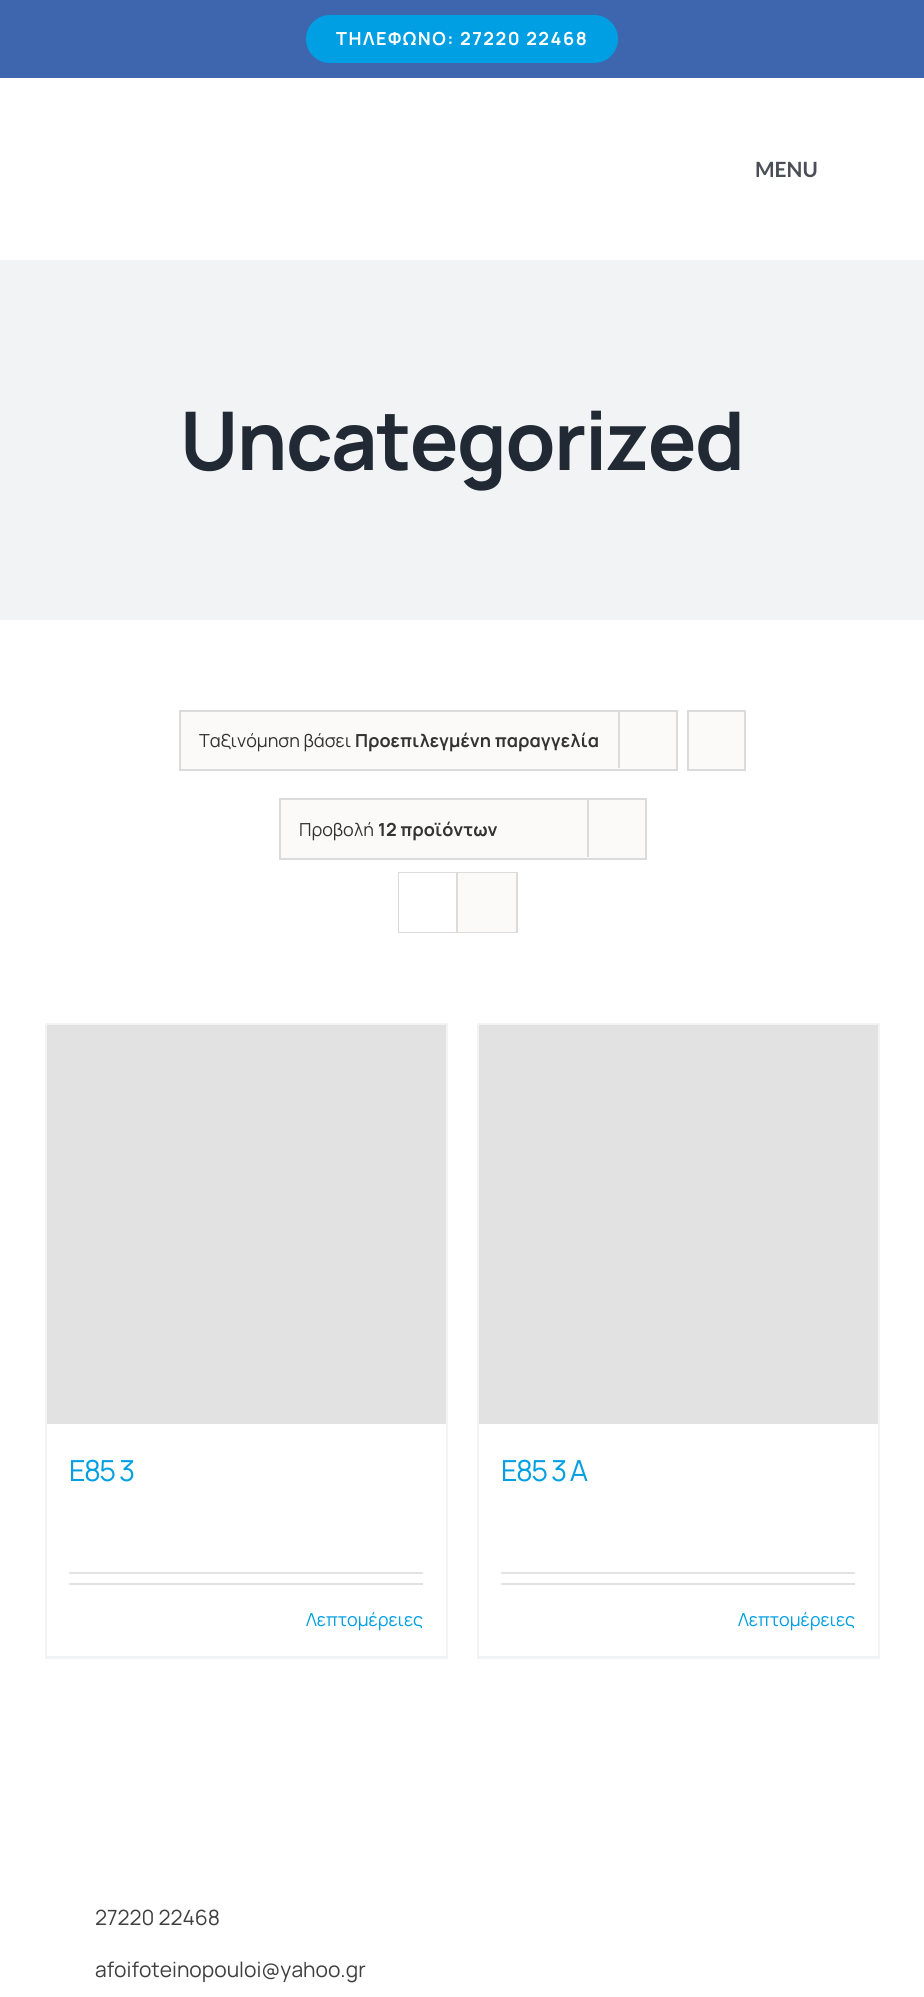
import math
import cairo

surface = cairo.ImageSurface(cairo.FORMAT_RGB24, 924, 1997)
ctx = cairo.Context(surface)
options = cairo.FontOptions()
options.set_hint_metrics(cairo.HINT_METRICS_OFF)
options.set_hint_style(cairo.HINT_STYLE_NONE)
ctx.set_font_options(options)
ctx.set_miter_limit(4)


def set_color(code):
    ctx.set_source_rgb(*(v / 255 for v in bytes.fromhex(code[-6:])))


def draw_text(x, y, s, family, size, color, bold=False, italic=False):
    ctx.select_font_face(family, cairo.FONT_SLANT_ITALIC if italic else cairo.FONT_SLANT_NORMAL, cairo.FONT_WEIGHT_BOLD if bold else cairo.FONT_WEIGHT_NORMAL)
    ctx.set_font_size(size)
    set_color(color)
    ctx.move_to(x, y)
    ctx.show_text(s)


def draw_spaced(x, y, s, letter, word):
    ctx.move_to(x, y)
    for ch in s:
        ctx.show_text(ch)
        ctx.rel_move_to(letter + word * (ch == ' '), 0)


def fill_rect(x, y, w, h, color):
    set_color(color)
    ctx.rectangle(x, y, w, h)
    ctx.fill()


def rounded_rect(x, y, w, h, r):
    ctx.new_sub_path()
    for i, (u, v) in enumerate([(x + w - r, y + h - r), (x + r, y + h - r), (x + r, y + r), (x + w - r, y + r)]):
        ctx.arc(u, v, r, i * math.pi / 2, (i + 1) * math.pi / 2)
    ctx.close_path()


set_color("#ffffff")
ctx.paint()
fill_rect(0, 0, 924, 78, "#3d66ae")
set_color("#009fe3")
rounded_rect(306, 15, 312, 48, 24)
ctx.fill()
ctx.select_font_face("Manrope", cairo.FONT_SLANT_NORMAL, cairo.FONT_WEIGHT_BOLD)
ctx.set_font_size(18)
set_color("#ffffff")
draw_spaced(336, 45, "ΤΗΛΕΦΩΝΟ: 27220 22468", 1.5, 0)
draw_text(755, 177, "MENU", "Lato", 21, "#4a4e57", bold=True)
fill_rect(0, 260, 924, 360, "#f2f3f5")
ctx.select_font_face("Manrope", cairo.FONT_SLANT_NORMAL, cairo.FONT_WEIGHT_BOLD)
ctx.set_font_size(81)
set_color("#212934")
draw_spaced(180, 470, "Uncategorized", -1.5, 0)
set_color("#fbfaf9")
ctx.rectangle(180, 711, 497, 59)
ctx.fill_preserve()
set_color("#dbdbdb")
ctx.stroke()
draw_text(199, 747, "Ταξινόμηση βάσει", "Manrope", 18, "#333333")
draw_text(355, 747, "Προεπιλεγμένη παραγγελία", "Manrope", 18, "#333333", bold=True)
fill_rect(618, 710, 2, 58, "#dbdbdb")
set_color("#fbfaf9")
ctx.rectangle(688, 711, 57, 59)
ctx.fill_preserve()
set_color("#dbdbdb")
ctx.stroke()
set_color("#fbfaf9")
ctx.rectangle(280, 799, 366, 60)
ctx.fill_preserve()
set_color("#dbdbdb")
ctx.stroke()
draw_text(299, 836, "Προβολή", "Manrope", 18, "#333333")
draw_text(378, 836, "12 προϊόντων", "Manrope", 18, "#333333", bold=True)
fill_rect(587, 798, 2, 59, "#dbdbdb")
ctx.rectangle(399, 873, 118, 59)
ctx.stroke()
fill_rect(399, 873, 57, 59, "#ffffff")
fill_rect(456, 873, 2, 59, "#dbdbdb")
fill_rect(458, 873, 58, 59, "#fbfaf9")
fill_rect(45, 1023, 402, 2, "#f2f3f5")
fill_rect(446, 1023, 2, 636, "#f2f3f5")
fill_rect(45, 1656, 402, 3, "#f2f3f5")
fill_rect(45, 1023, 2, 636, "#f2f3f5")
fill_rect(47, 1025, 399, 399, "#e2e2e2")
ctx.select_font_face("Manrope")
ctx.set_font_size(29)
set_color("#009fe3")
draw_spaced(69, 1481, "E85 3", -1.5, 0)
fill_rect(69, 1572, 354, 2, "#e2e2e2")
fill_rect(69, 1583, 354, 2, "#e2e2e2")
draw_text(306, 1626, "Λεπτομέρειες", "Manrope", 18, "#009fe3")
fill_rect(477, 1023, 402, 2, "#f2f3f5")
fill_rect(878, 1023, 2, 636, "#f2f3f5")
fill_rect(477, 1656, 402, 3, "#f2f3f5")
fill_rect(477, 1023, 2, 636, "#f2f3f5")
fill_rect(479, 1025, 399, 399, "#e2e2e2")
ctx.set_font_size(29)
set_color("#009fe3")
draw_spaced(501, 1481, "E85 3 A", -1.5, 0)
fill_rect(501, 1572, 354, 2, "#e2e2e2")
fill_rect(501, 1583, 354, 2, "#e2e2e2")
draw_text(738, 1626, "Λεπτομέρειες", "Manrope", 18, "#009fe3")
draw_text(95, 1925, "27220 22468", "Manrope", 21, "#3f3f3f")
draw_text(95, 1977, "afoifoteinopouloi@yahoo.gr", "Manrope", 21, "#3f3f3f")
surface.write_to_png("output.png")
